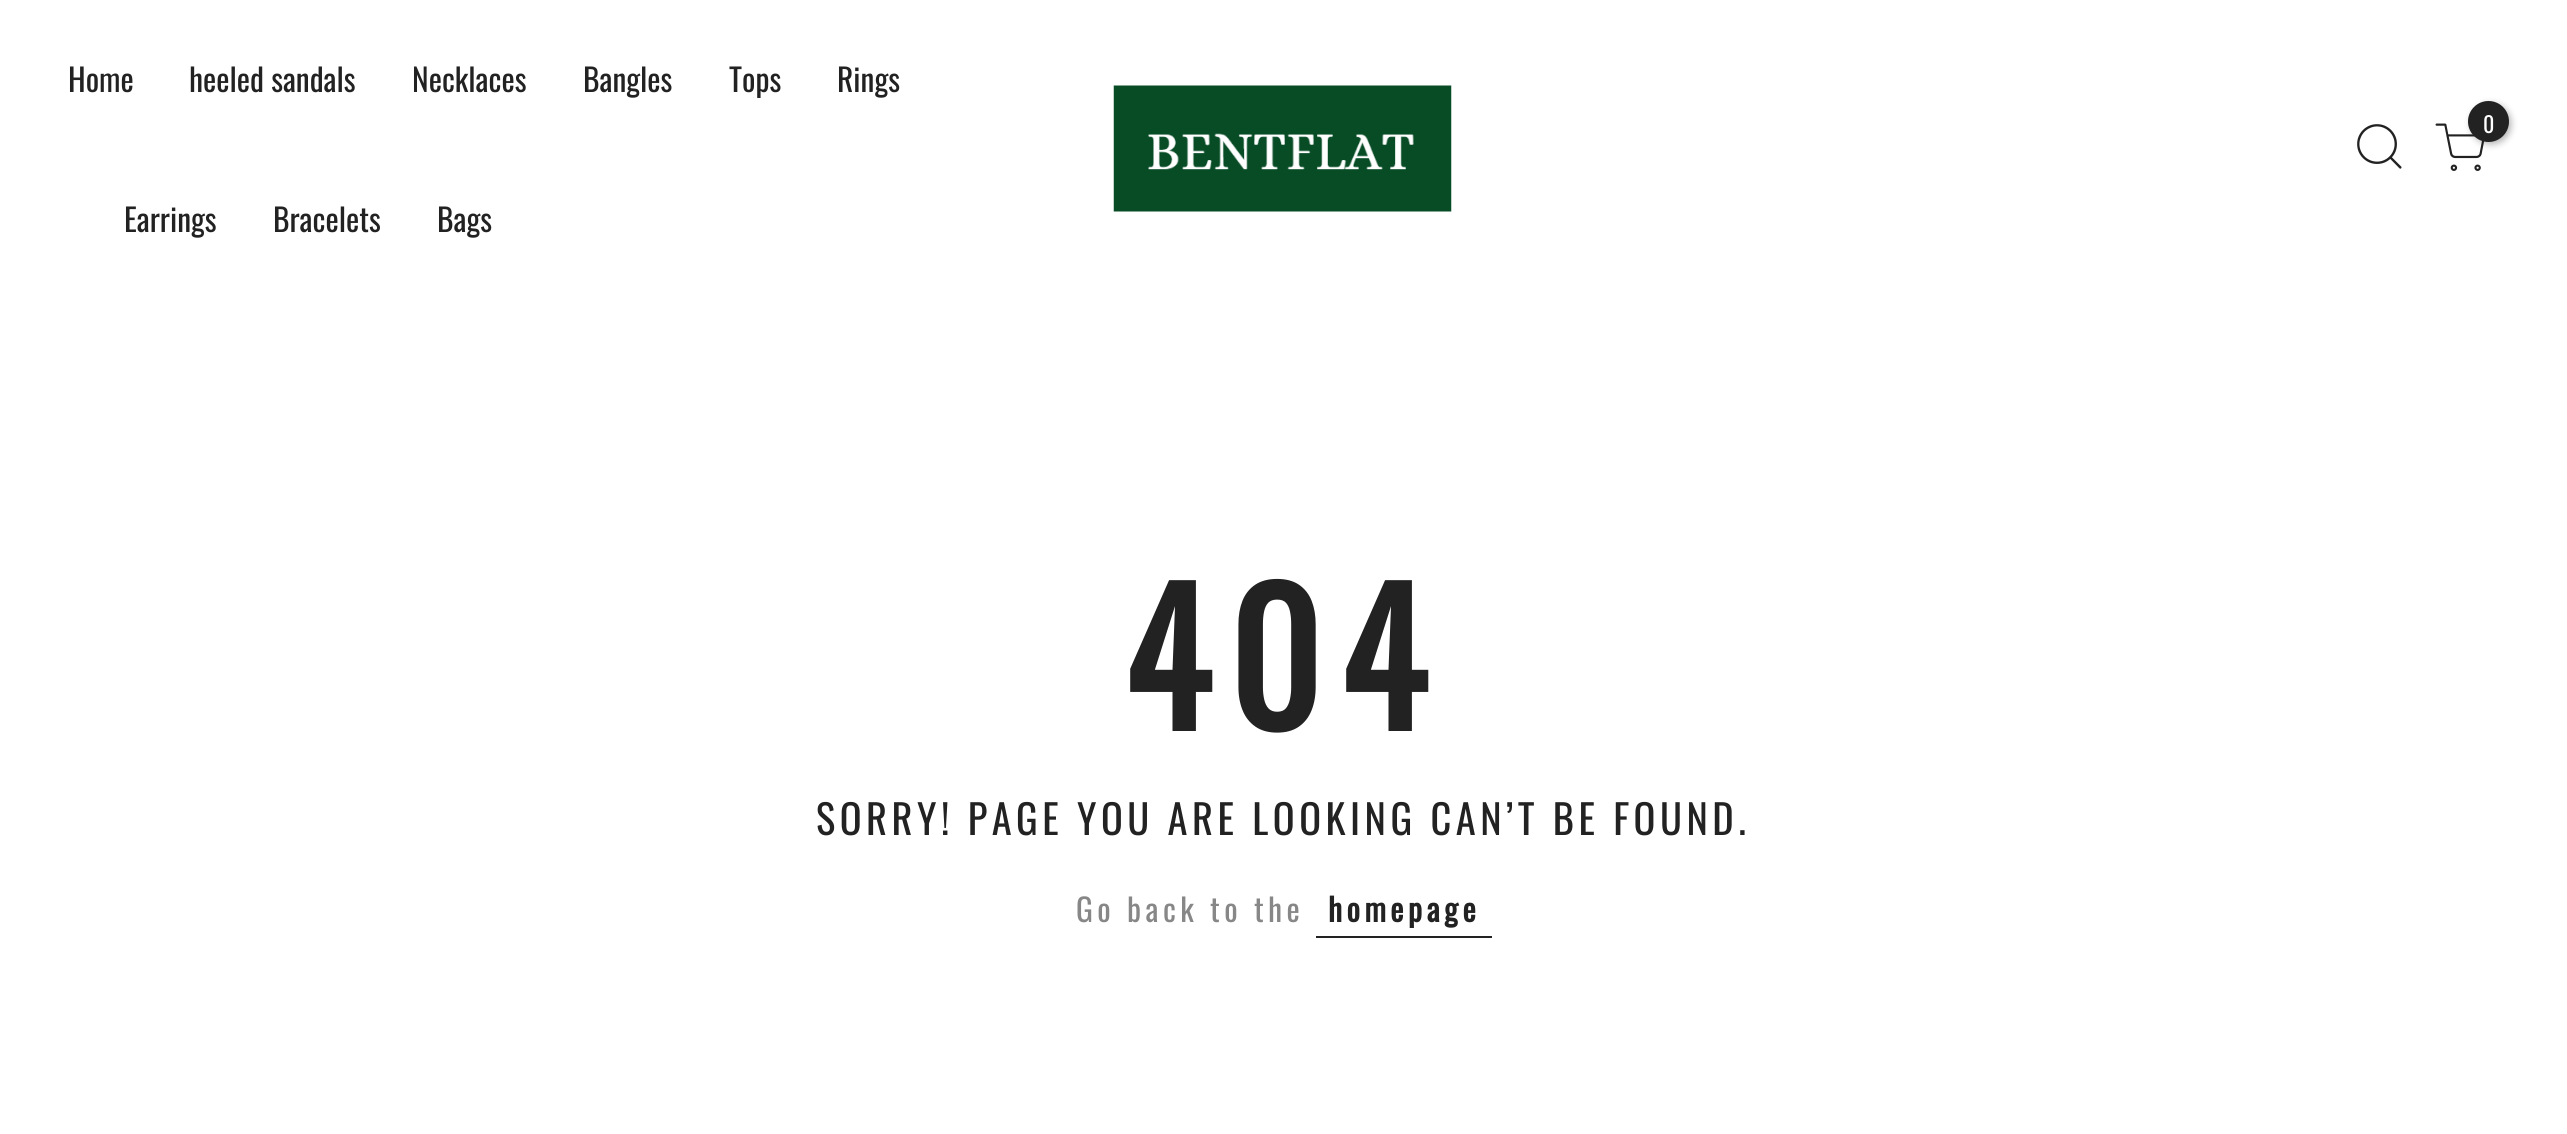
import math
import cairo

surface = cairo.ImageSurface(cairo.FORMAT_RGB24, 2567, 1134)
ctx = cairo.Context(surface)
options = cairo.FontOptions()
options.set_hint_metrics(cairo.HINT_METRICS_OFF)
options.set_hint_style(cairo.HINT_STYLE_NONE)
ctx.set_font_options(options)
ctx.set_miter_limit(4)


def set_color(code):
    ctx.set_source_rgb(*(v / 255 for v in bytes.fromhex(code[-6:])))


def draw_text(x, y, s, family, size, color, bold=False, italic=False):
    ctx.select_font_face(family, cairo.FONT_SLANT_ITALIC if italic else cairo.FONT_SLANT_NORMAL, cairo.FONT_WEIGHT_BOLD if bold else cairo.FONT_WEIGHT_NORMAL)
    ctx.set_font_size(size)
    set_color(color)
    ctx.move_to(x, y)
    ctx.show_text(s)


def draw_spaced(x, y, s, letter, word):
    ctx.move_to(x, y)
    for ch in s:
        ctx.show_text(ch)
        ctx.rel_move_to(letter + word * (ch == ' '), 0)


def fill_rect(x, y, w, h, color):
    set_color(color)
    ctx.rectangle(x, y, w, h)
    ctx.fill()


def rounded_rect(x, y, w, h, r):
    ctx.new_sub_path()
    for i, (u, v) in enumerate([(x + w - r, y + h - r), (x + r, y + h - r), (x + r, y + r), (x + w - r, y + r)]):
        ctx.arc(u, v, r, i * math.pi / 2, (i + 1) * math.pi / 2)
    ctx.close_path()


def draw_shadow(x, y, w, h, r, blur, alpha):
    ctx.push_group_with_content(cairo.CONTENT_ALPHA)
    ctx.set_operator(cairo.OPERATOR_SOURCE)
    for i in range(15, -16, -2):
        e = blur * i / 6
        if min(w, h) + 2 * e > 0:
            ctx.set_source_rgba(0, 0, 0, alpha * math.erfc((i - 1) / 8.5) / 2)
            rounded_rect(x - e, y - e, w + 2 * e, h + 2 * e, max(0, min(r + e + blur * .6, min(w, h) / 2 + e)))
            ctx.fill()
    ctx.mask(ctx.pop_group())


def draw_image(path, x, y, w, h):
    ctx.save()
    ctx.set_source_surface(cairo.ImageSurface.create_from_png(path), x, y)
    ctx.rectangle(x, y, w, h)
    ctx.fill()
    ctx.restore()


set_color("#ffffff")
ctx.paint()
draw_text(68, 92, "Home", "Oswald", 31.5, "#222222")
draw_text(189, 92, "heeled sandals", "Oswald", 31.5, "#222222")
draw_text(412, 92, "Necklaces", "Oswald", 31.5, "#222222")
draw_text(583, 92, "Bangles", "Oswald", 31.5, "#222222")
draw_text(729, 92, "Tops", "Oswald", 31.5, "#222222")
draw_text(837, 92, "Rings", "Oswald", 31.5, "#222222")
draw_text(124, 232, "Earrings", "Oswald", 31.5, "#222222")
draw_text(273, 232, "Bracelets", "Oswald", 31.5, "#222222")
draw_text(437, 232, "Bags", "Oswald", 31.5, "#222222")
draw_image("assets/img1.png", 1113, 85, 339, 127)
draw_image("assets/img2.png", 2357, 124, 45, 45)
draw_image("assets/img3.png", 2435, 123, 50, 48)
set_color("#000000")
draw_shadow(2471, 104, 40, 40, 20, 3.5, 0.3)
set_color("#222222")
ctx.arc(2488.5, 121.5, 20.5, 0, 2 * math.pi)
ctx.fill()
draw_text(2483, 133, "0", "Oswald", 22, "#ffffff")
ctx.select_font_face("Oswald", cairo.FONT_SLANT_NORMAL, cairo.FONT_WEIGHT_BOLD)
ctx.set_font_size(180)
set_color("#222222")
draw_spaced(1123, 731, "404", 18, 0)
ctx.select_font_face("Oswald")
ctx.set_font_size(40.5)
draw_spaced(816, 835, "SORRY! PAGE YOU ARE LOOKING CAN’T BE FOUND.", 4.5, 0)
ctx.set_font_size(31.5)
set_color("#878787")
draw_spaced(1076, 922, "Go back to the", 4.5, 0)
ctx.select_font_face("Oswald", cairo.FONT_SLANT_NORMAL, cairo.FONT_WEIGHT_BOLD)
set_color("#222222")
draw_spaced(1328, 922, "homepage", 4.5, 0)
fill_rect(1316, 936, 176, 2, "#222222")
surface.write_to_png("output.png")
